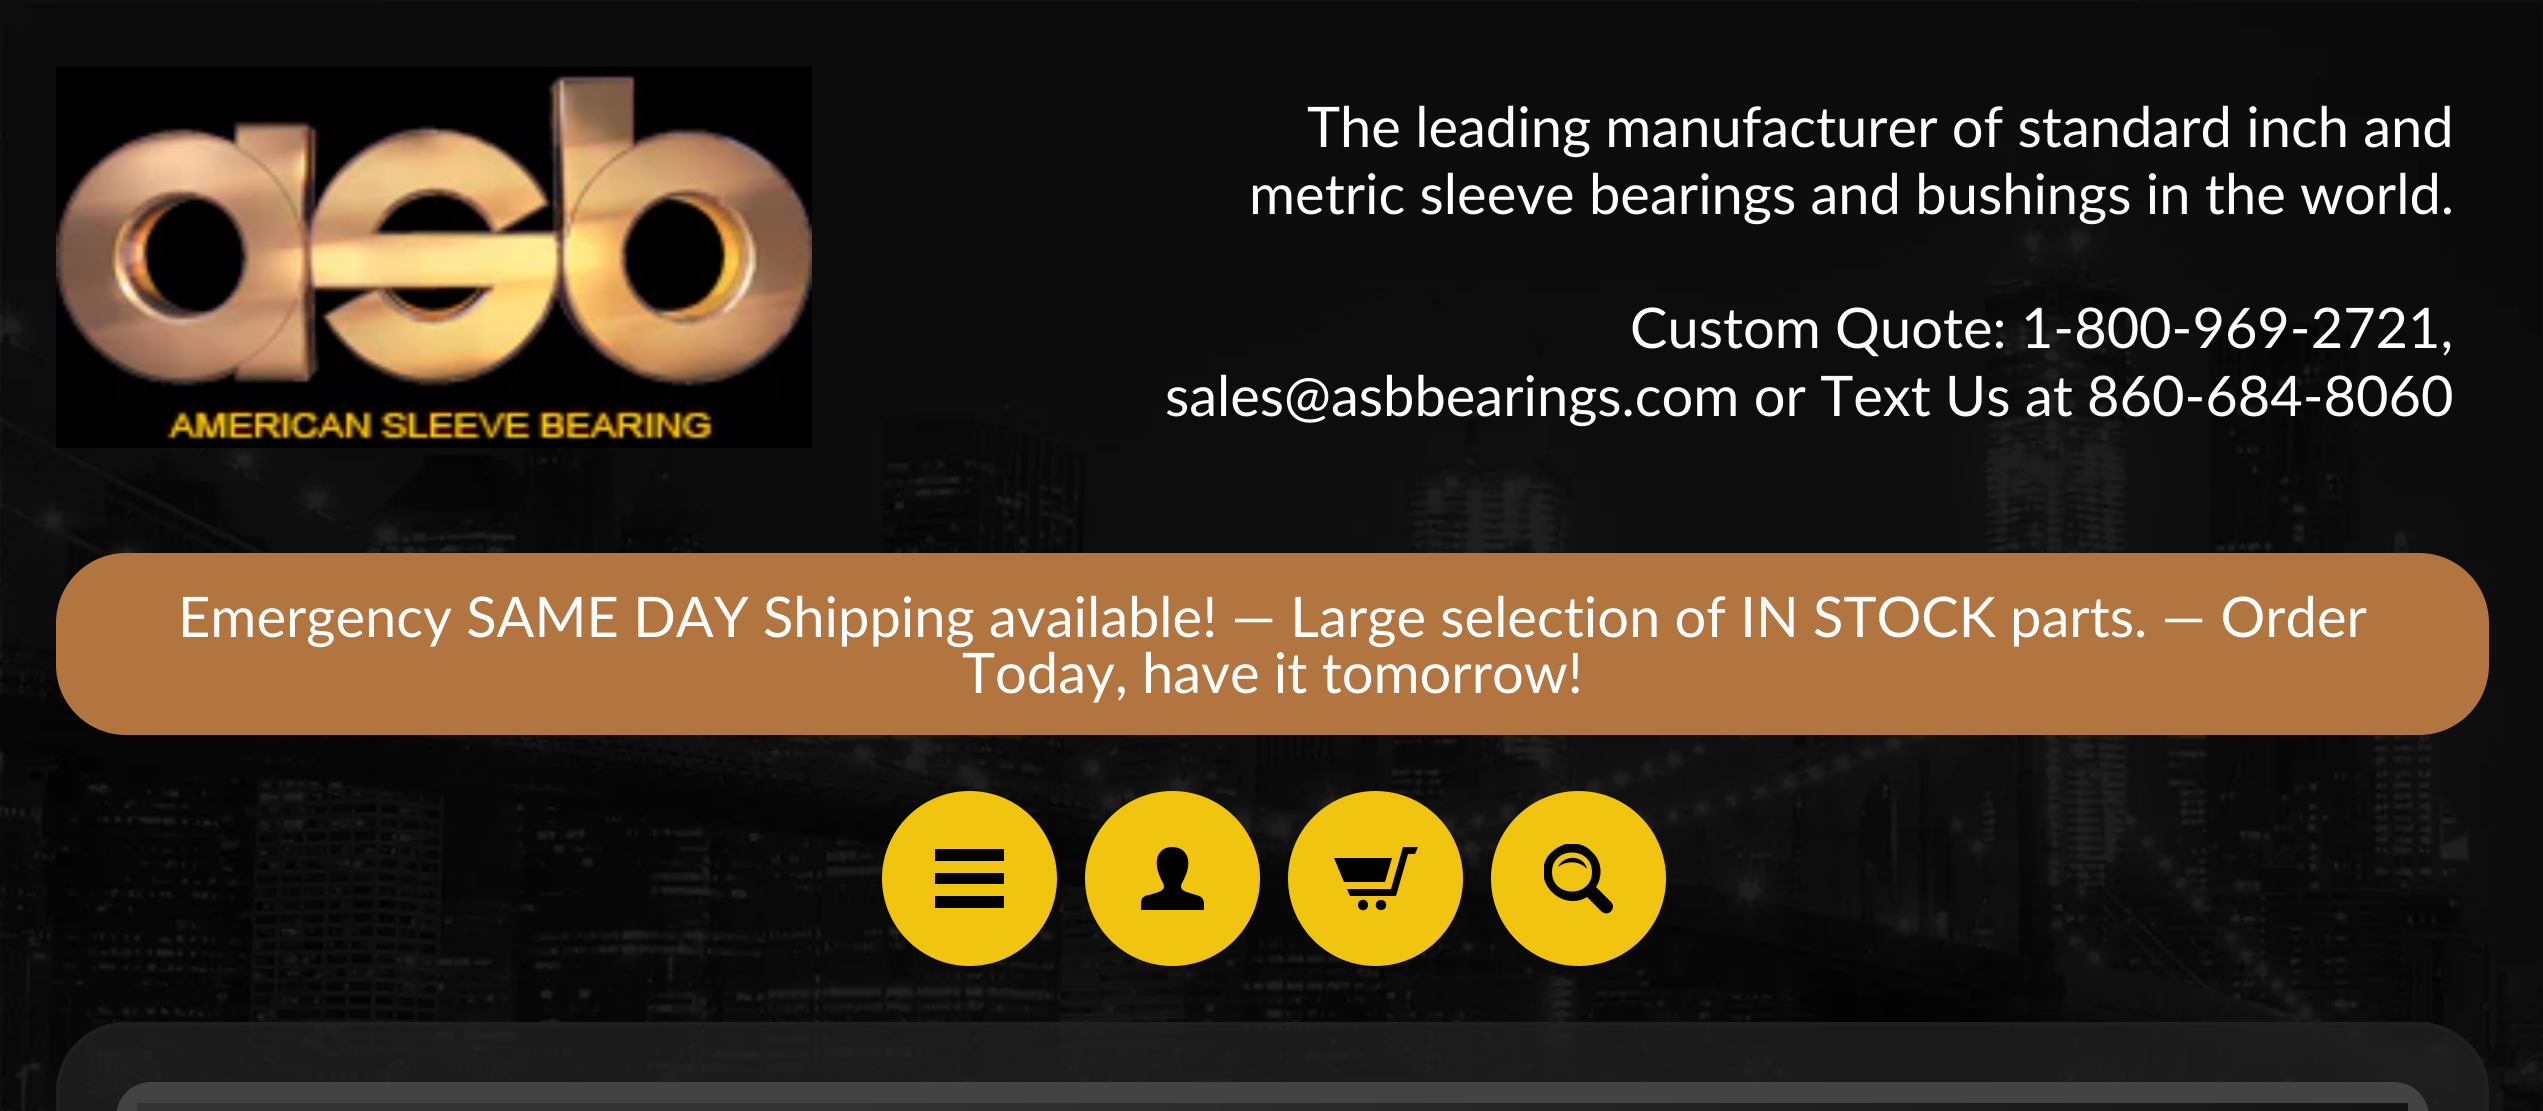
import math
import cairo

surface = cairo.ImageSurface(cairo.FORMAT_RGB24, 2543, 1111)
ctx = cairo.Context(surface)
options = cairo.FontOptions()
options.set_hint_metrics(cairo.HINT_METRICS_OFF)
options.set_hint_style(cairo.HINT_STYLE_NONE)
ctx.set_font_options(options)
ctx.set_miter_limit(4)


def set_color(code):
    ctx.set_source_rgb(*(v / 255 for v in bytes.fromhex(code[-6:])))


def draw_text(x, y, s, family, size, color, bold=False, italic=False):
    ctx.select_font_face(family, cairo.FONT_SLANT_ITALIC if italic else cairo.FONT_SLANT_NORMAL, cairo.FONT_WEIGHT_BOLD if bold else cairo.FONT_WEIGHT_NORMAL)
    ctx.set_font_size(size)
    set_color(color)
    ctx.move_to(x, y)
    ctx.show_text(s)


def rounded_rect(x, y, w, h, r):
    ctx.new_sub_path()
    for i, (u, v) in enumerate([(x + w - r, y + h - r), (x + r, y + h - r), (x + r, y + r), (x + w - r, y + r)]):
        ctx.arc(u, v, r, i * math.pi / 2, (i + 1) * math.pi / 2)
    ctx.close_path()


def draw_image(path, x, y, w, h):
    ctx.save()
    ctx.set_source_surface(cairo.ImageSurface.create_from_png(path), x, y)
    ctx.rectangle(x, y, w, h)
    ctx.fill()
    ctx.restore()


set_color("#ffffff")
ctx.paint()
draw_image("assets/img1.png", 0, 0, 2543, 1111)
draw_image("assets/img2.png", 56, 66, 756, 382)
draw_text(1307, 147, "The leading manufacturer of standard inch and", "Lato", 56, "#ffffff")
draw_text(1249, 214, "metric sleeve bearings and bushings in the world.", "Lato", 56, "#ffffff")
draw_text(1630, 348, "Custom Quote: 1-800-969-2721,", "Lato", 56, "#ffffff")
draw_text(1165, 416, "sales@asbbearings.com or Text Us at 860-684-8060", "Lato", 56, "#ffffff")
set_color("#b37540")
rounded_rect(56, 553, 2433, 182, 70)
ctx.fill()
draw_text(178, 637, "Emergency SAME DAY Shipping available! — Large selection of IN STOCK parts. — Order", "Lato", 56, "#ffffff")
draw_text(962, 693, "Today, have it tomorrow!", "Lato", 56, "#ffffff")
set_color("#f1c40f")
ctx.new_path()
ctx.arc(969.5, 878.5, 82, 0, 2 * math.pi)
ctx.fill_preserve()
ctx.set_line_width(11)
ctx.stroke()
ctx.save()
ctx.rectangle(935, 844, 70, 70)
ctx.clip()
set_color("#000000")
ctx.new_path()
ctx.move_to(1004, 861)
ctx.line_to(934, 861)
ctx.line_to(934, 849)
ctx.line_to(1004, 849)
ctx.close_path()
ctx.move_to(1004, 873)
ctx.line_to(934, 873)
ctx.line_to(934, 884)
ctx.line_to(1004, 884)
ctx.close_path()
ctx.move_to(1004, 896)
ctx.line_to(934, 896)
ctx.line_to(934, 908)
ctx.line_to(1004, 908)
ctx.close_path()
ctx.fill()
ctx.restore()
ctx.arc(1172.5, 878.5, 82, 0, 2 * math.pi)
ctx.fill_preserve()
ctx.stroke()
set_color("#000000")
ctx.new_path()
ctx.move_to(1196, 895)
ctx.curve_to(1187, 892, 1178, 891, 1182, 883)
ctx.curve_to(1195, 860, 1186, 847, 1172, 847)
ctx.curve_to(1159, 847, 1150, 860, 1163, 883)
ctx.curve_to(1167, 891, 1158, 892, 1149, 895)
ctx.curve_to(1141, 896, 1141, 900, 1141, 907)
ctx.line_to(1141, 910)
ctx.line_to(1204, 910)
ctx.curve_to(1204, 902, 1205, 897, 1196, 895)
ctx.close_path()
ctx.fill()
set_color("#f1c40f")
ctx.arc(1375.5, 878.5, 82, 0, 2 * math.pi)
ctx.fill_preserve()
ctx.stroke()
set_color("#000000")
ctx.new_path()
ctx.move_to(1368, 905)
ctx.curve_to(1368, 912, 1358, 912, 1358, 905)
ctx.curve_to(1358, 898, 1368, 898, 1368, 905)
ctx.close_path()
ctx.move_to(1381, 900)
ctx.curve_to(1374, 900, 1374, 910, 1381, 910)
ctx.curve_to(1388, 910, 1388, 900, 1381, 900)
ctx.close_path()
ctx.move_to(1385, 882)
ctx.line_to(1392, 858)
ctx.line_to(1334, 858)
ctx.line_to(1344, 882)
ctx.close_path()
ctx.move_to(1403, 847)
ctx.line_to(1391, 889)
ctx.line_to(1347, 889)
ctx.line_to(1350, 896)
ctx.line_to(1396, 896)
ctx.line_to(1408, 854)
ctx.line_to(1415, 854)
ctx.line_to(1418, 847)
ctx.close_path()
ctx.fill()
set_color("#f1c40f")
ctx.arc(1578.5, 878.5, 82, 0, 2 * math.pi)
ctx.fill_preserve()
ctx.stroke()
ctx.save()
ctx.rectangle(1544, 844, 70, 70)
ctx.clip()
set_color("#000000")
ctx.new_path()
ctx.move_to(1611, 902)
ctx.line_to(1596, 887)
ctx.curve_to(1603, 876, 1602, 861, 1592, 852)
ctx.curve_to(1586, 845, 1576, 842, 1566, 844)
ctx.curve_to(1559, 846, 1553, 850, 1548, 856)
ctx.curve_to(1531, 882, 1562, 912, 1587, 897)
ctx.line_to(1601, 911)
ctx.curve_to(1608, 918, 1617, 908, 1611, 902)
ctx.close_path()
ctx.move_to(1552, 872)
ctx.curve_to(1552, 846, 1592, 846, 1592, 872)
ctx.curve_to(1592, 898, 1552, 898, 1552, 872)
ctx.close_path()
ctx.move_to(1558, 867)
ctx.curve_to(1564, 854, 1584, 855, 1587, 869)
ctx.curve_to(1580, 861, 1567, 860, 1558, 867)
ctx.close_path()
ctx.fill()
ctx.restore()
ctx.set_source_rgba(0.133, 0.133, 0.133, 0.75)
rounded_rect(56, 1022, 2433, 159, 70)
ctx.fill()
rounded_rect(58, 1024, 2429, 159, 68)
ctx.set_source_rgba(0.133, 0.133, 0.133, 0.7)
ctx.set_line_width(4)
ctx.stroke()
set_color("#434343")
rounded_rect(116, 1082, 2313, 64, 35)
ctx.fill()
gradient = cairo.LinearGradient(674, 565, 1871, 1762)
gradient.add_color_stop_rgba(0.3, 0.2, 0.2, 0.2, 1)
gradient.add_color_stop_rgba(1, 0.067, 0.067, 0.067, 1)
ctx.set_source(gradient)
ctx.rectangle(137, 1103, 2271, 8)
ctx.fill()
surface.write_to_png("output.png")
